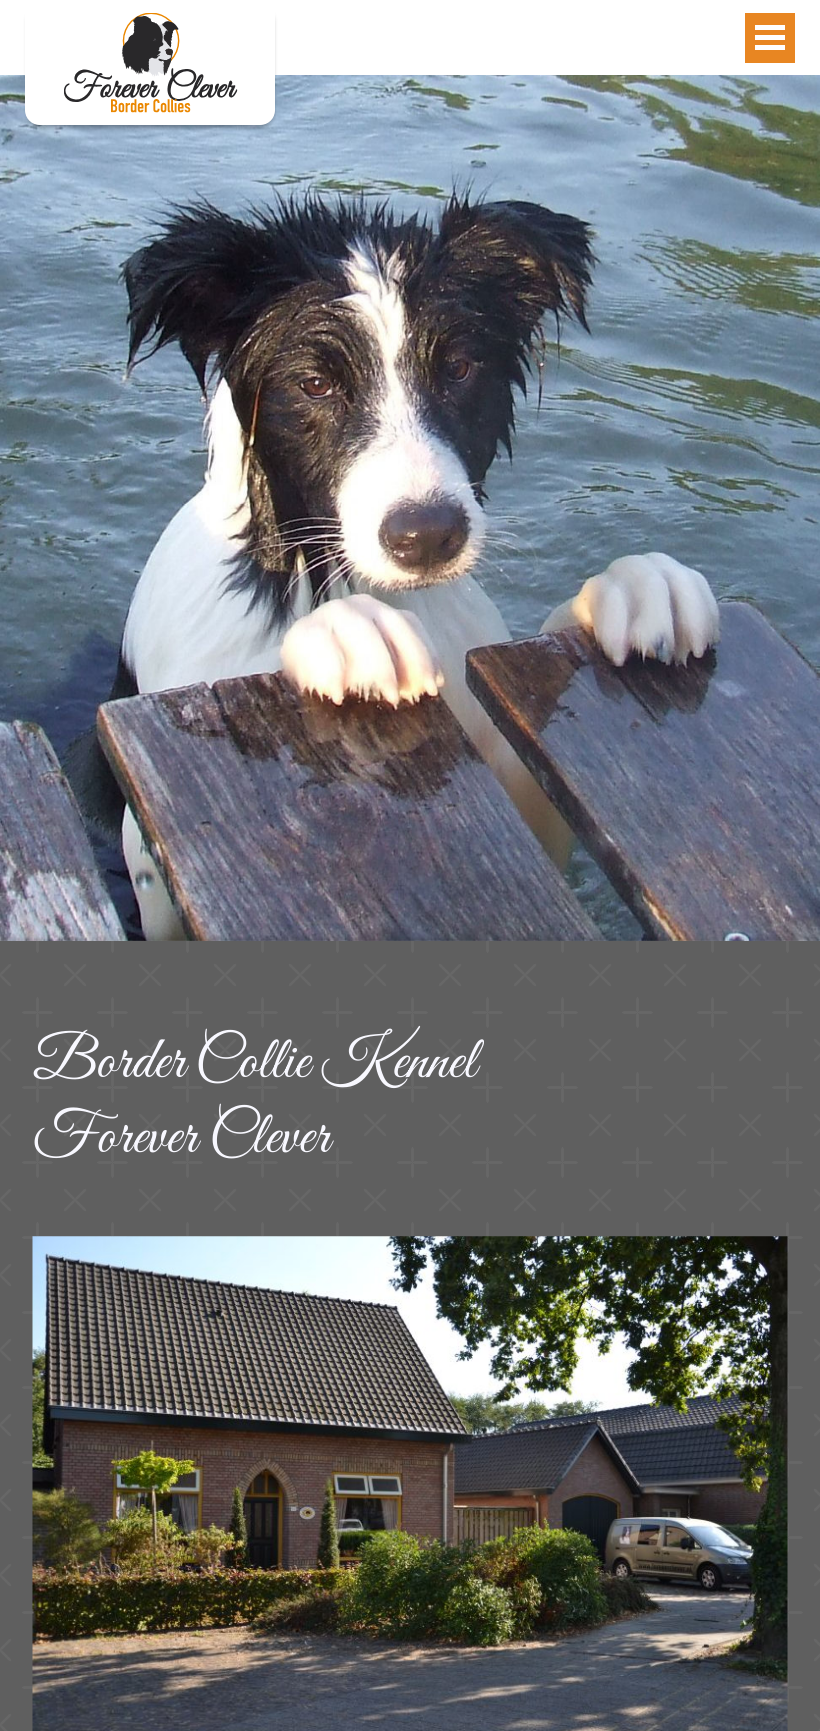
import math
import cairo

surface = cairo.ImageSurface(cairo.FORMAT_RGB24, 820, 1731)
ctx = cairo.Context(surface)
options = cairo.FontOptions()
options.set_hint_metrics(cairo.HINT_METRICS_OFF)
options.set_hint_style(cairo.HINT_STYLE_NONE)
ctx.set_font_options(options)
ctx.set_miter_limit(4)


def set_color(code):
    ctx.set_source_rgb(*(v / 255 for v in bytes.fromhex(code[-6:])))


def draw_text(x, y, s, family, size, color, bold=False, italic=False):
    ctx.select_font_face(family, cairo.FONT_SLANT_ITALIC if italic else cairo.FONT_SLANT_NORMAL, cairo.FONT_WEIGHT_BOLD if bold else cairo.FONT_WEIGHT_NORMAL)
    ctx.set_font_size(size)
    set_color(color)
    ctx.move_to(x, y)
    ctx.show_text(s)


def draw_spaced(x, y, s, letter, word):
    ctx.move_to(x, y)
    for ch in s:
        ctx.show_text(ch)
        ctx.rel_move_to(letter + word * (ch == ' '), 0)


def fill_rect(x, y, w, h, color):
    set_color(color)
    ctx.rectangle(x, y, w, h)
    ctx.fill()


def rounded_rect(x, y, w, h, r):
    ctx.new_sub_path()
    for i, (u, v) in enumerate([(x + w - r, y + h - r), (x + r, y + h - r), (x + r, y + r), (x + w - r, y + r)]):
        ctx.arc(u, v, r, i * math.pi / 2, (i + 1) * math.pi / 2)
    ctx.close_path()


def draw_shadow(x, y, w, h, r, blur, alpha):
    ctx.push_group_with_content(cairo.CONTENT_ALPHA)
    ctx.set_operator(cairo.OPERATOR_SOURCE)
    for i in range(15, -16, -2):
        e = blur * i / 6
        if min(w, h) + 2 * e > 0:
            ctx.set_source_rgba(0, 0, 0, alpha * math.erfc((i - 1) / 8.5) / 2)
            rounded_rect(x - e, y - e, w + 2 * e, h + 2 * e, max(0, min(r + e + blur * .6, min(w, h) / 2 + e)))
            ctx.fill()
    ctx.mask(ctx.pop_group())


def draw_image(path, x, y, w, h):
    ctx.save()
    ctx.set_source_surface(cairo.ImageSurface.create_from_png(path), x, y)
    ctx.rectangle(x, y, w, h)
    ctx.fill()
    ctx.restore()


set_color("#ffffff")
ctx.paint()
draw_image("assets/img2.png", 0, 75, 820, 866)
set_color("#000000")
draw_shadow(28, 8, 245, 120, 13, 2.5, 0.32)
set_color("#ffffff")
ctx.new_path()
ctx.move_to(25, 0)
ctx.line_to(275, 0)
ctx.line_to(275, 110)
ctx.curve_to(275, 118.5, 268.5, 125, 260, 125)
ctx.line_to(40, 125)
ctx.curve_to(31.5, 125, 25, 118.5, 25, 110)
ctx.close_path()
ctx.fill()
draw_image("assets/img1.png", 64, 13, 174, 100)
fill_rect(745, 13, 50, 50, "#e88622")
fill_rect(755, 25, 30, 5, "#ffffff")
fill_rect(755, 35, 30, 5, "#ffffff")
fill_rect(755, 45, 30, 5, "#ffffff")
set_color("#000000")
draw_shadow(0, 941, 820, 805, 0, 5, 0.32)
fill_rect(0, 941, 820, 790, "#5f5f5f")
draw_image("assets/img3.png", 0, 941, 820, 790)
draw_text(33, 1077, "Border Collie Kennel", "Great Vibes", 60, "#f8f8ff")
draw_spaced(33, 1152, "Forever Clever", 0, 2)
draw_image("assets/img4.png", 32, 1236, 756, 495)
surface.write_to_png("output.png")
